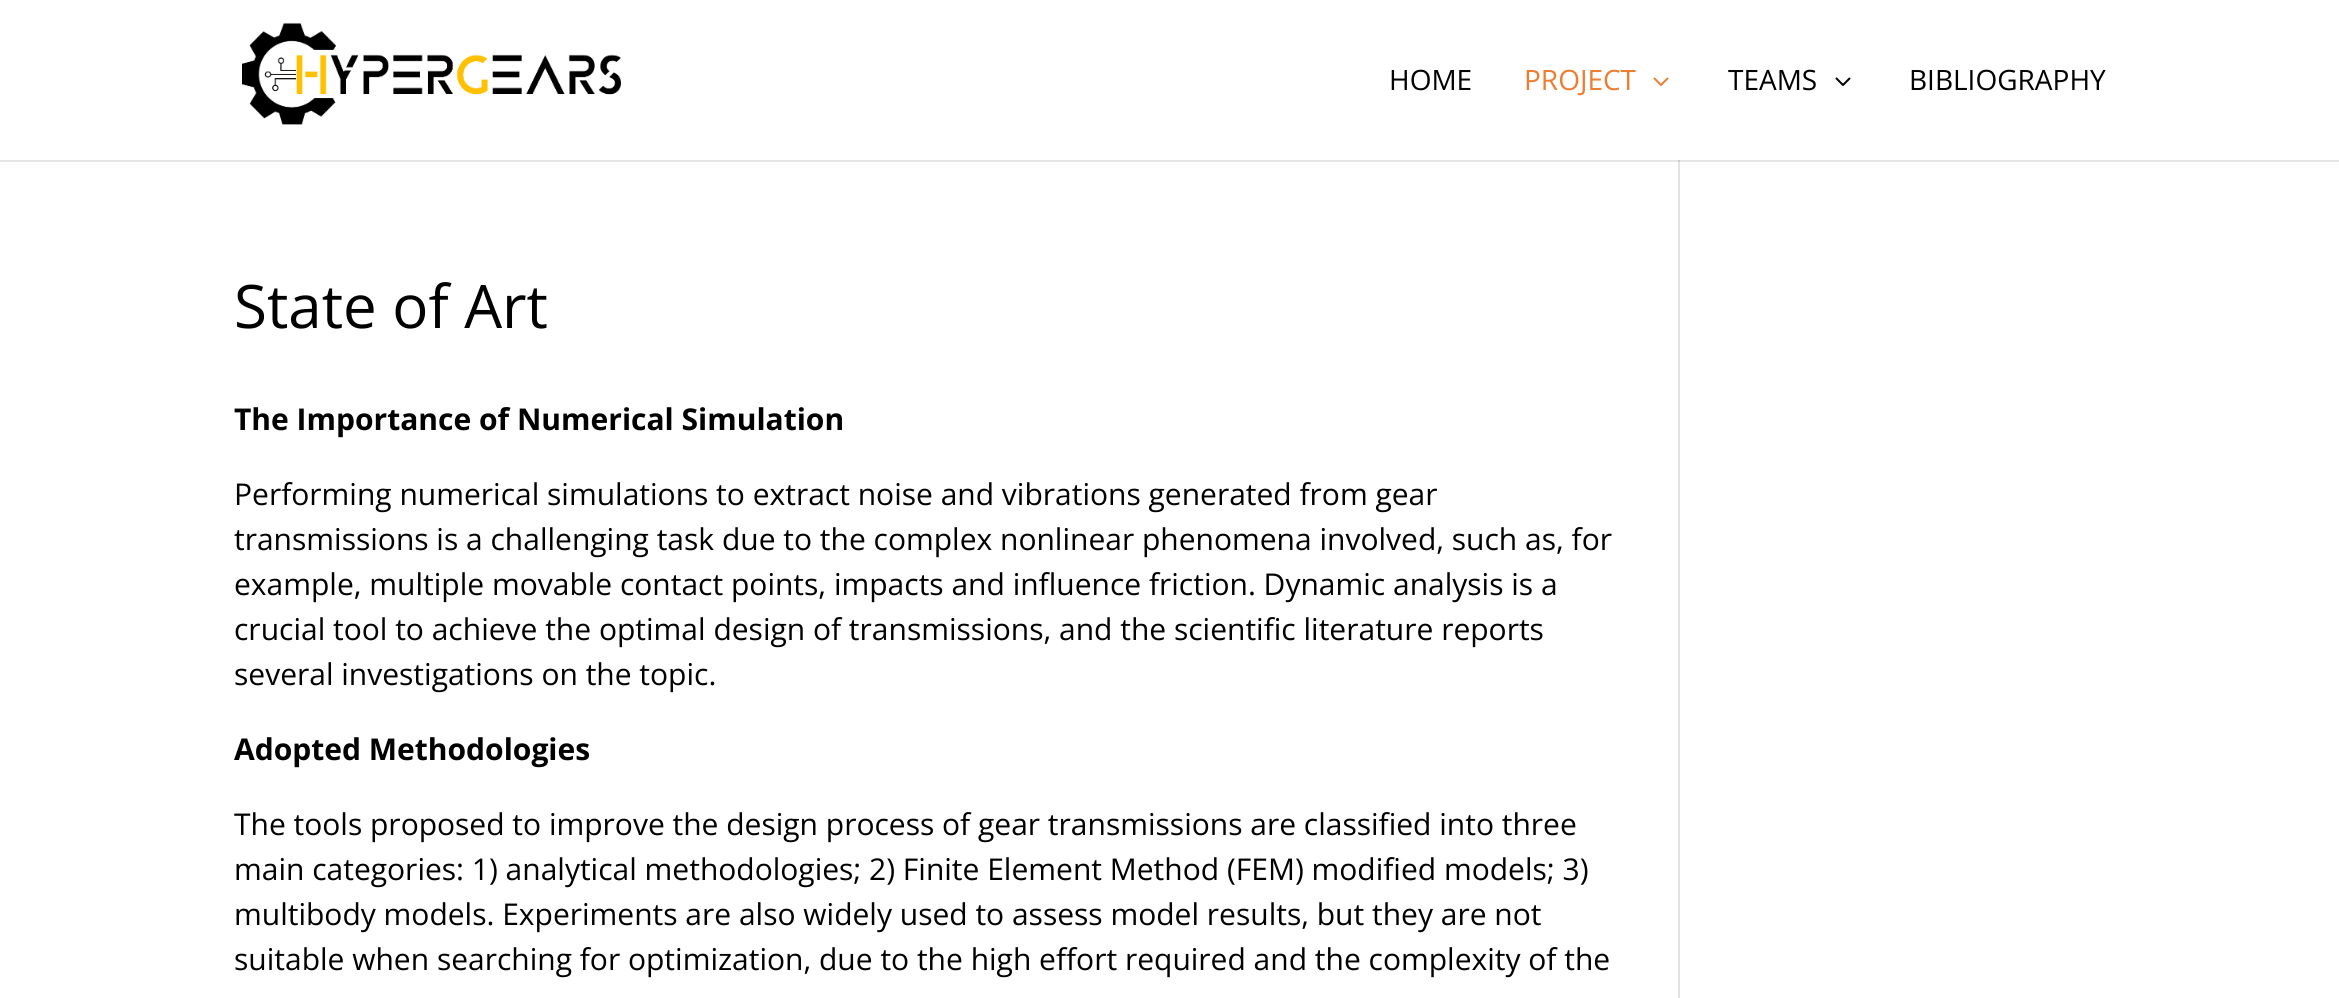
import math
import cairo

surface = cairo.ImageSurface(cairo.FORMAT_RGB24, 2339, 998)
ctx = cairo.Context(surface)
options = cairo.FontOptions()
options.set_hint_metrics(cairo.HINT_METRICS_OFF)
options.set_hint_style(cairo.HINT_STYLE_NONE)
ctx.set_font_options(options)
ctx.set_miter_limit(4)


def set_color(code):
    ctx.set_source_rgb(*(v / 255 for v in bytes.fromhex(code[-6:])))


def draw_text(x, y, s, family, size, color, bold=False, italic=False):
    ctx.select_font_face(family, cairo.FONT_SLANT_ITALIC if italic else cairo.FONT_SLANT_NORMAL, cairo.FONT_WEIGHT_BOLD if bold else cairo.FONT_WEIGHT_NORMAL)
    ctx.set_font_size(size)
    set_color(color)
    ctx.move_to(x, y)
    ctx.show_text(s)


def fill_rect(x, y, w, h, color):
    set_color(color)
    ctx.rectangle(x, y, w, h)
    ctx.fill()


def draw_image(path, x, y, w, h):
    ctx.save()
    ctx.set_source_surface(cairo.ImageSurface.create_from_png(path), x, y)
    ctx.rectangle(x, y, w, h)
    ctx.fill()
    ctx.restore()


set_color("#ffffff")
ctx.paint()
fill_rect(0, 160, 2339, 2, "#e6e6e6")
draw_image("assets/img1.png", 242, 22, 379, 103)
draw_text(1389, 90, "HOME", "Open Sans", 28, "#000000")
draw_text(1524, 90, "PROJECT", "Open Sans", 28, "#ed7d31")
draw_image("assets/img2.png", 1653, 77, 16, 9)
draw_text(1728, 90, "TEAMS", "Open Sans", 28, "#000000")
draw_image("assets/img3.png", 1835, 77, 16, 9)
draw_text(1909, 90, "BIBLIOGRAPHY", "Open Sans", 28, "#000000")
draw_text(234, 328, "State of Art", "Open Sans", 60, "#000000")
draw_text(234, 430, "The Importance of Numerical Simulation", "Open Sans", 30, "#000000", bold=True)
draw_text(234, 505, "Performing numerical simulations to extract noise and vibrations generated from gear", "Open Sans", 30, "#000000")
draw_text(234, 550, "transmissions is a challenging task due to the complex nonlinear phenomena involved, such as, for", "Open Sans", 30, "#000000")
draw_text(234, 595, "example, multiple movable contact points, impacts and influence friction. Dynamic analysis is a", "Open Sans", 30, "#000000")
draw_text(234, 640, "crucial tool to achieve the optimal design of transmissions, and the scientific literature reports", "Open Sans", 30, "#000000")
draw_text(234, 685, "several investigations on the topic.", "Open Sans", 30, "#000000")
draw_text(234, 760, "Adopted Methodologies", "Open Sans", 30, "#000000", bold=True)
draw_text(234, 835, "The tools proposed to improve the design process of gear transmissions are classified into three", "Open Sans", 30, "#000000")
draw_text(234, 880, "main categories: 1) analytical methodologies; 2) Finite Element Method (FEM) modified models; 3)", "Open Sans", 30, "#000000")
draw_text(234, 925, "multibody models. Experiments are also widely used to assess model results, but they are not", "Open Sans", 30, "#000000")
draw_text(234, 970, "suitable when searching for optimization, due to the high effort required and the complexity of the", "Open Sans", 30, "#000000")
fill_rect(1678, 160, 2, 838, "#e2e2e2")
fill_rect(1678, 160, 2, 2, "#cbcbcb")
surface.write_to_png("output.png")
